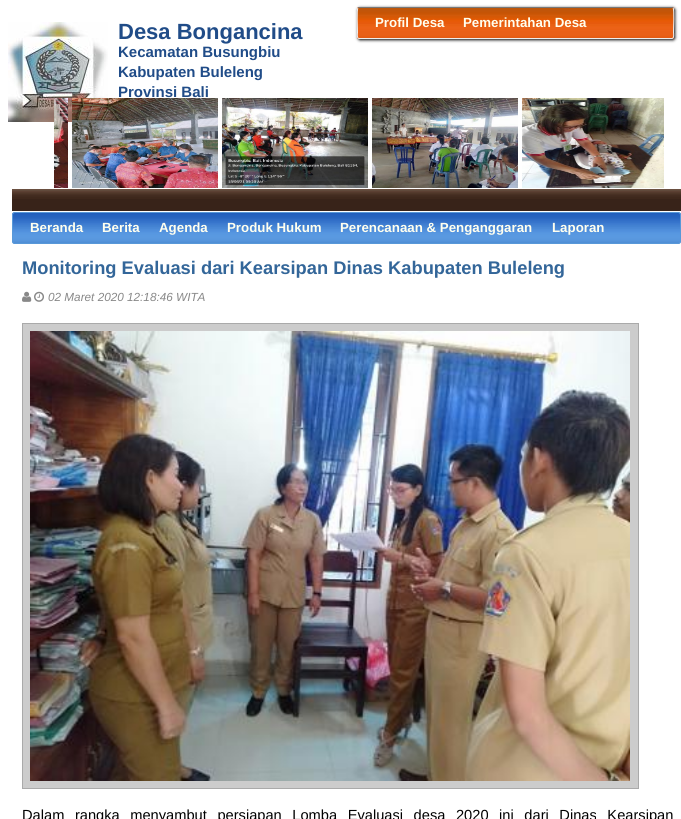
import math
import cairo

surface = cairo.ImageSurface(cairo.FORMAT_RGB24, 681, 819)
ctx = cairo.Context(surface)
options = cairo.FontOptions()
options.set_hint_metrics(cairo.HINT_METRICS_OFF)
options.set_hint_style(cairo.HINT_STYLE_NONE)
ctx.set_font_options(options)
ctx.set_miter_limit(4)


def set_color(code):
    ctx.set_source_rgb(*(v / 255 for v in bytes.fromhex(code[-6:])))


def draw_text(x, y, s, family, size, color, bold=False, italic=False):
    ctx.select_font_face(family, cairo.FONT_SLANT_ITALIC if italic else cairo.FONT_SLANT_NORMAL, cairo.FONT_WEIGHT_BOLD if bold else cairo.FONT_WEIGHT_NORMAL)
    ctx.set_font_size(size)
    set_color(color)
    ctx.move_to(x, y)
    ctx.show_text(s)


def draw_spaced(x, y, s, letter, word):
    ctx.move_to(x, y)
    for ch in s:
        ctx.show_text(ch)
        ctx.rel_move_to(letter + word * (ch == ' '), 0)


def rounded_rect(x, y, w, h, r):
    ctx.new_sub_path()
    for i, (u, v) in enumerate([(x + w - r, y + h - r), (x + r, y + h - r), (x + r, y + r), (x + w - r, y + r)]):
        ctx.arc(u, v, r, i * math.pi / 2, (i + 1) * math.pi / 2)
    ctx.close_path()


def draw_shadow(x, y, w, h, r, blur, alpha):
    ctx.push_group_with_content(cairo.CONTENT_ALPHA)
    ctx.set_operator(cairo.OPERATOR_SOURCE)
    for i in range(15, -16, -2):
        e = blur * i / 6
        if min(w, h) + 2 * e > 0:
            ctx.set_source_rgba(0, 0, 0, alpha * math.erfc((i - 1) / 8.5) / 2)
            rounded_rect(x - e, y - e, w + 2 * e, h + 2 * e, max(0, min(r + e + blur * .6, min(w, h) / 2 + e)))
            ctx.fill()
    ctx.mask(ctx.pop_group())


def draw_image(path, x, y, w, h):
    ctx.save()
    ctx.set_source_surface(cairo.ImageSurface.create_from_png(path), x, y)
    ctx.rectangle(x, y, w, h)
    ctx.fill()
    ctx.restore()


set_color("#ffffff")
ctx.paint()
draw_image("assets/img1.png", 8, 22, 100, 100)
draw_text(118, 39, "Desa Bongancina", "Liberation Sans", 22, "#204c88", bold=True)
draw_text(118, 57, "Kecamatan Busungbiu", "Liberation Sans", 15, "#204c88", bold=True)
draw_text(118, 77, "Kabupaten Buleleng", "Liberation Sans", 15, "#204c88", bold=True)
draw_text(118, 97, "Provinsi Bali", "Liberation Sans", 15, "#204c88", bold=True)
set_color("#000000")
draw_shadow(358, 8, 317, 32, 2, 1.5, 1)
draw_image("assets/img2.png", 357, 7, 317, 32)
ctx.new_path()
ctx.move_to(358, 8)
ctx.line_to(359, 7.5)
ctx.line_to(672, 7.5)
ctx.line_to(673, 8)
set_color("#777777")
ctx.set_line_width(1)
ctx.stroke()
ctx.new_path()
ctx.move_to(673, 8)
ctx.curve_to(674.5, 9, 673.5, 29, 673.5, 32.5)
ctx.curve_to(673.5, 32.5, 674.5, 38.5, 672, 38.5)
ctx.line_to(359, 38.5)
ctx.curve_to(356.5, 38.5, 357.5, 32.5, 357.5, 32.5)
ctx.curve_to(357.5, 29, 356.5, 9, 358, 8)
set_color("#eeeeee")
ctx.stroke()
draw_text(375, 27, "Profil Desa", "Liberation Sans", 13.3, "#ffffef", bold=True)
draw_text(463, 27, "Pemerintahan Desa", "Liberation Sans", 13.3, "#ffffef", bold=True)
draw_image("assets/img3.png", 54, 98, 14, 90)
draw_image("assets/img4.png", 72, 98, 146, 90)
draw_image("assets/img5.png", 222, 98, 146, 90)
draw_image("assets/img6.png", 372, 98, 146, 90)
draw_image("assets/img7.png", 522, 98, 142, 90)
draw_image("assets/img8.png", 12, 189, 669, 22)
draw_image("assets/img9.png", 12, 212, 669, 32)
rounded_rect(12.5, 212.5, 668, 31, 2.5)
set_color("#5898d8")
ctx.stroke()
draw_text(30, 232, "Beranda", "Liberation Sans", 13.3, "#ffffef", bold=True)
draw_text(102, 232, "Berita", "Liberation Sans", 13.3, "#ffffef", bold=True)
draw_text(159, 232, "Agenda", "Liberation Sans", 13.3, "#ffffef", bold=True)
draw_text(227, 232, "Produk Hukum", "Liberation Sans", 13.3, "#ffffef", bold=True)
draw_text(340, 232, "Perencanaan & Penganggaran", "Liberation Sans", 13.3, "#ffffef", bold=True)
draw_text(552, 232, "Laporan", "Liberation Sans", 13.3, "#ffffef", bold=True)
draw_text(22, 274, "Monitoring Evaluasi dari Kearsipan Dinas Kabupaten Buleleng", "Liberation Sans", 18.3, "#336699", bold=True)
draw_image("assets/img10.png", 22, 291, 10, 11)
draw_image("assets/img11.png", 34, 291, 10, 11)
draw_text(48, 301, "02 Maret 2020 12:18:46 WITA", "Liberation Sans", 11.75, "#888888", italic=True)
set_color("#cccccc")
ctx.rectangle(22.5, 323.5, 616, 465)
ctx.fill_preserve()
set_color("#aaaaaa")
ctx.stroke()
draw_image("assets/img12.png", 30, 331, 600, 450)
ctx.select_font_face("Liberation Sans")
ctx.set_font_size(14.65)
set_color("#000000")
draw_spaced(22, 820, "Dalam rangka menyambut persiapan Lomba Evaluasi desa 2020 ini dari Dinas Kearsipan", 0, 6.5)
surface.write_to_png("output.png")
